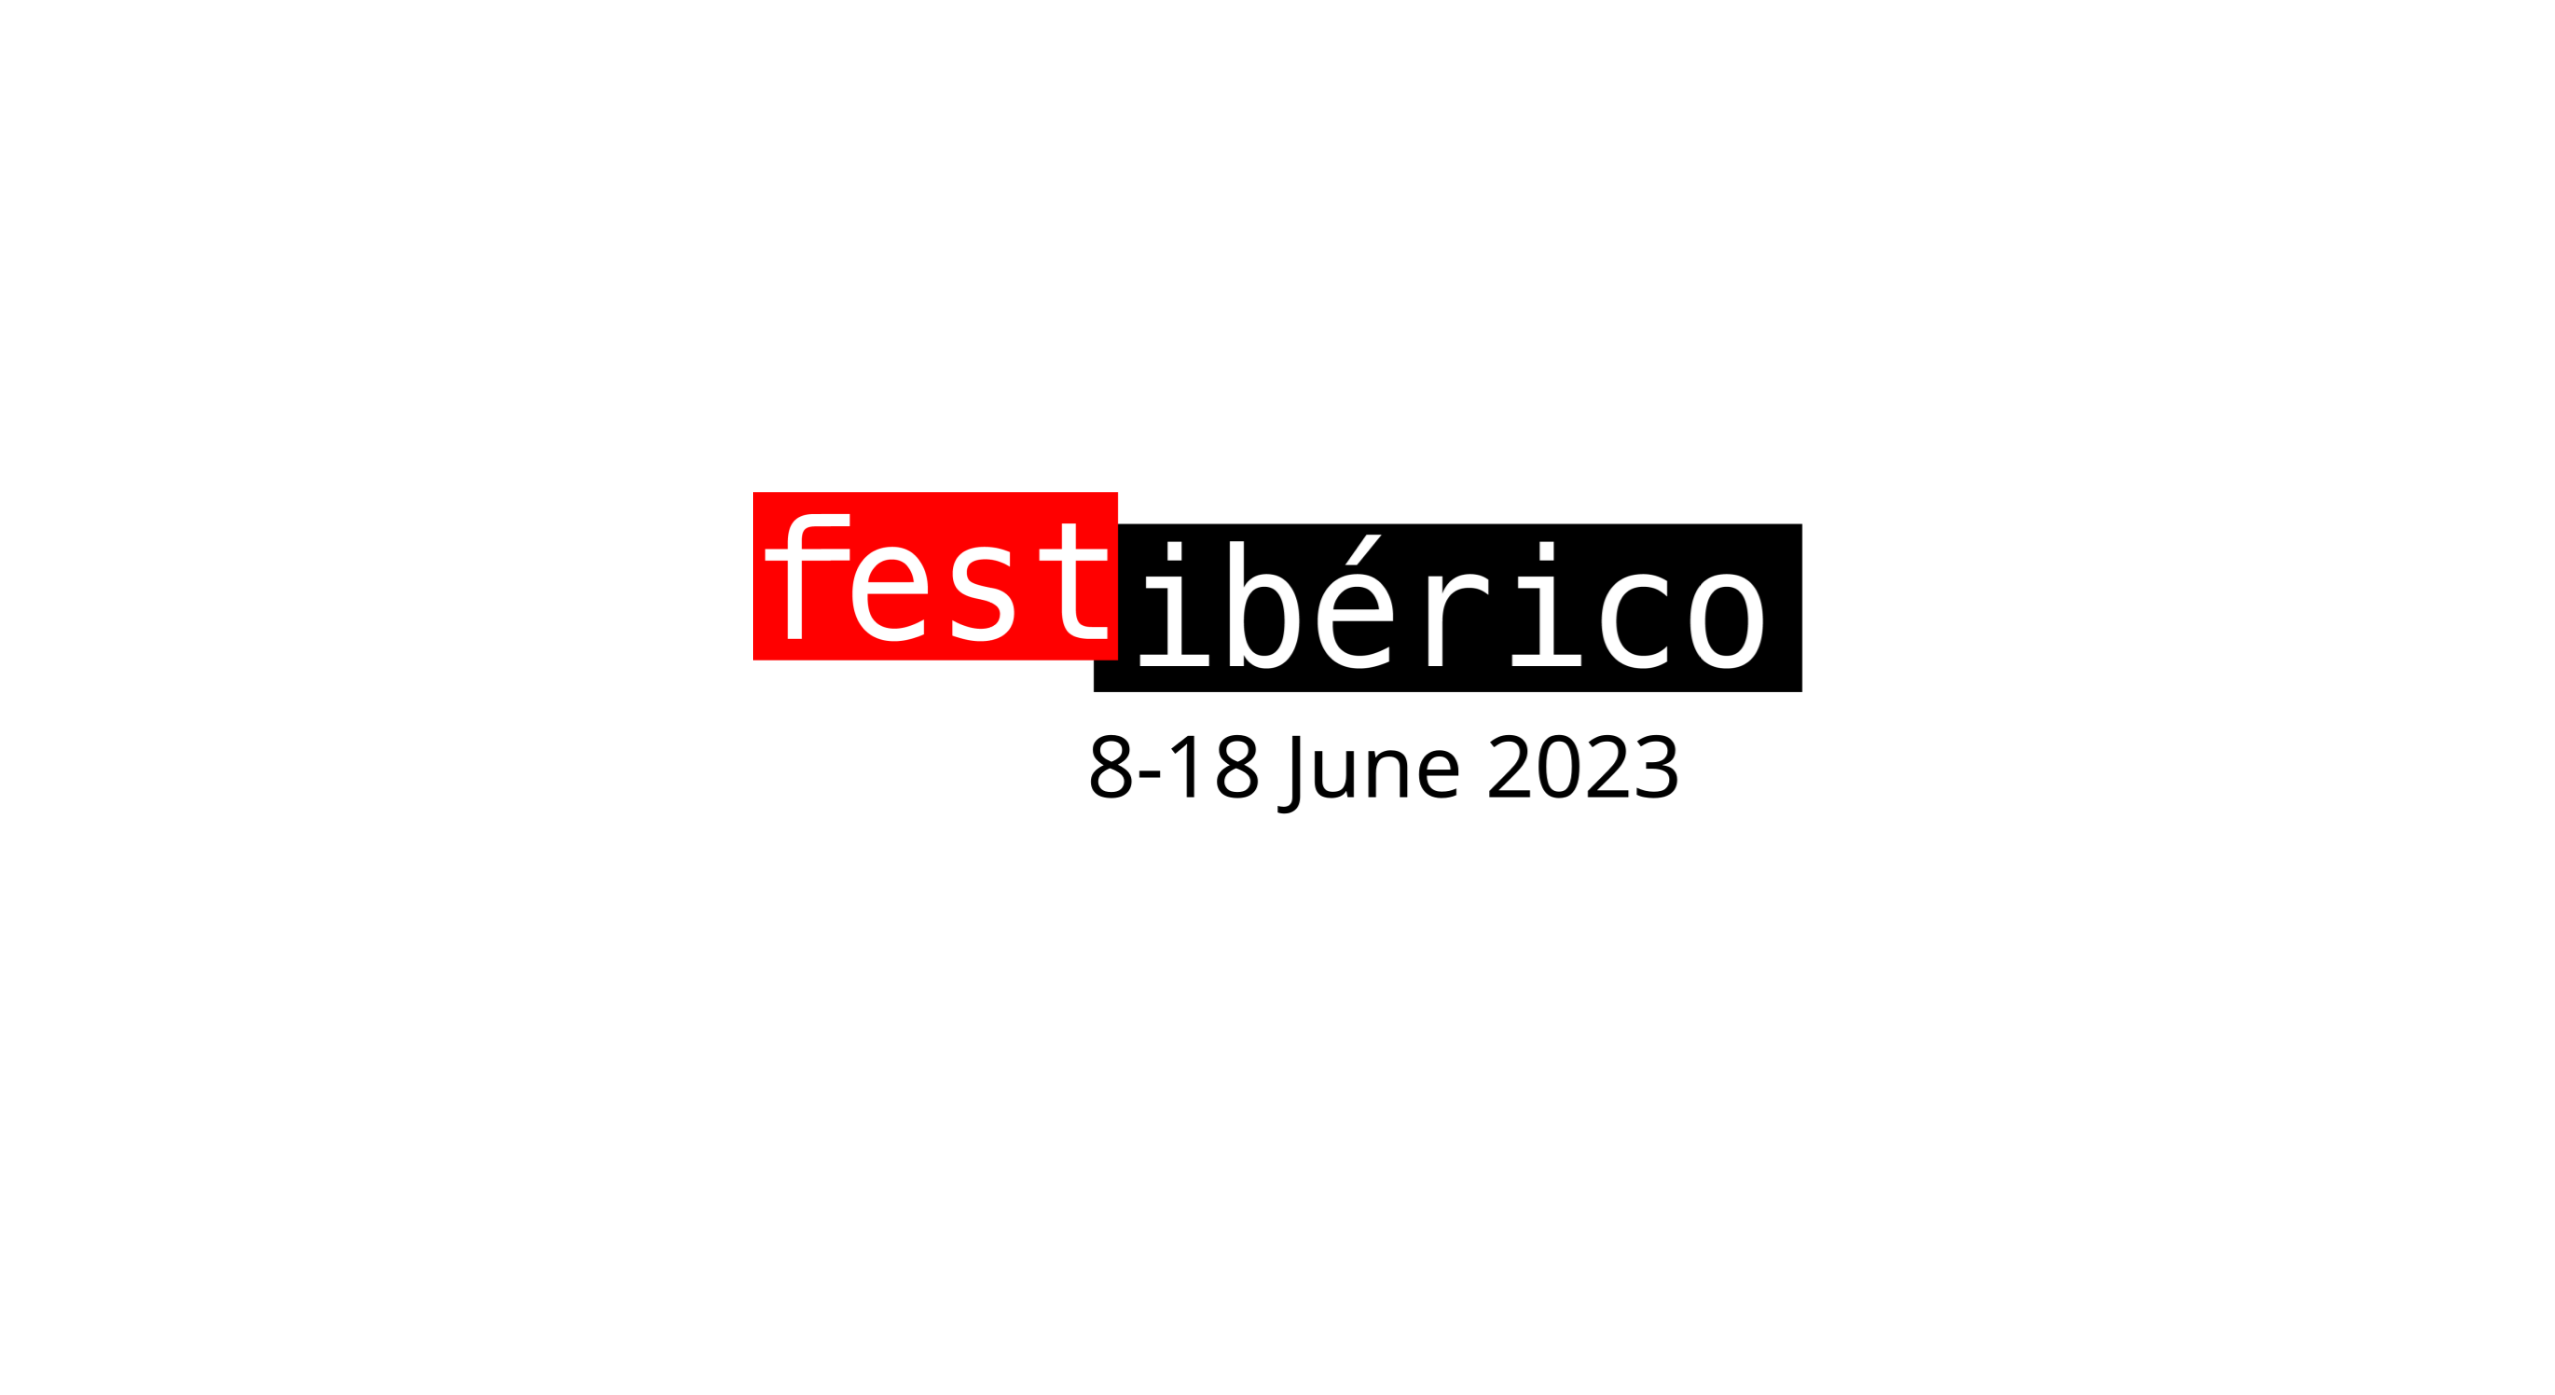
import math
import cairo

surface = cairo.ImageSurface(cairo.FORMAT_RGB24, 2555, 1395)
ctx = cairo.Context(surface)
options = cairo.FontOptions()
options.set_hint_metrics(cairo.HINT_METRICS_OFF)
options.set_hint_style(cairo.HINT_STYLE_NONE)
ctx.set_font_options(options)
ctx.set_miter_limit(4)


def set_color(code):
    ctx.set_source_rgb(*(v / 255 for v in bytes.fromhex(code[-6:])))


def draw_image(path, x, y, w, h):
    ctx.save()
    ctx.set_source_surface(cairo.ImageSurface.create_from_png(path), x, y)
    ctx.rectangle(x, y, w, h)
    ctx.fill()
    ctx.restore()


set_color("#ffffff")
ctx.paint()
draw_image("assets/img1.png", 753, 492, 1050, 323)
surface.write_to_png("output.png")
